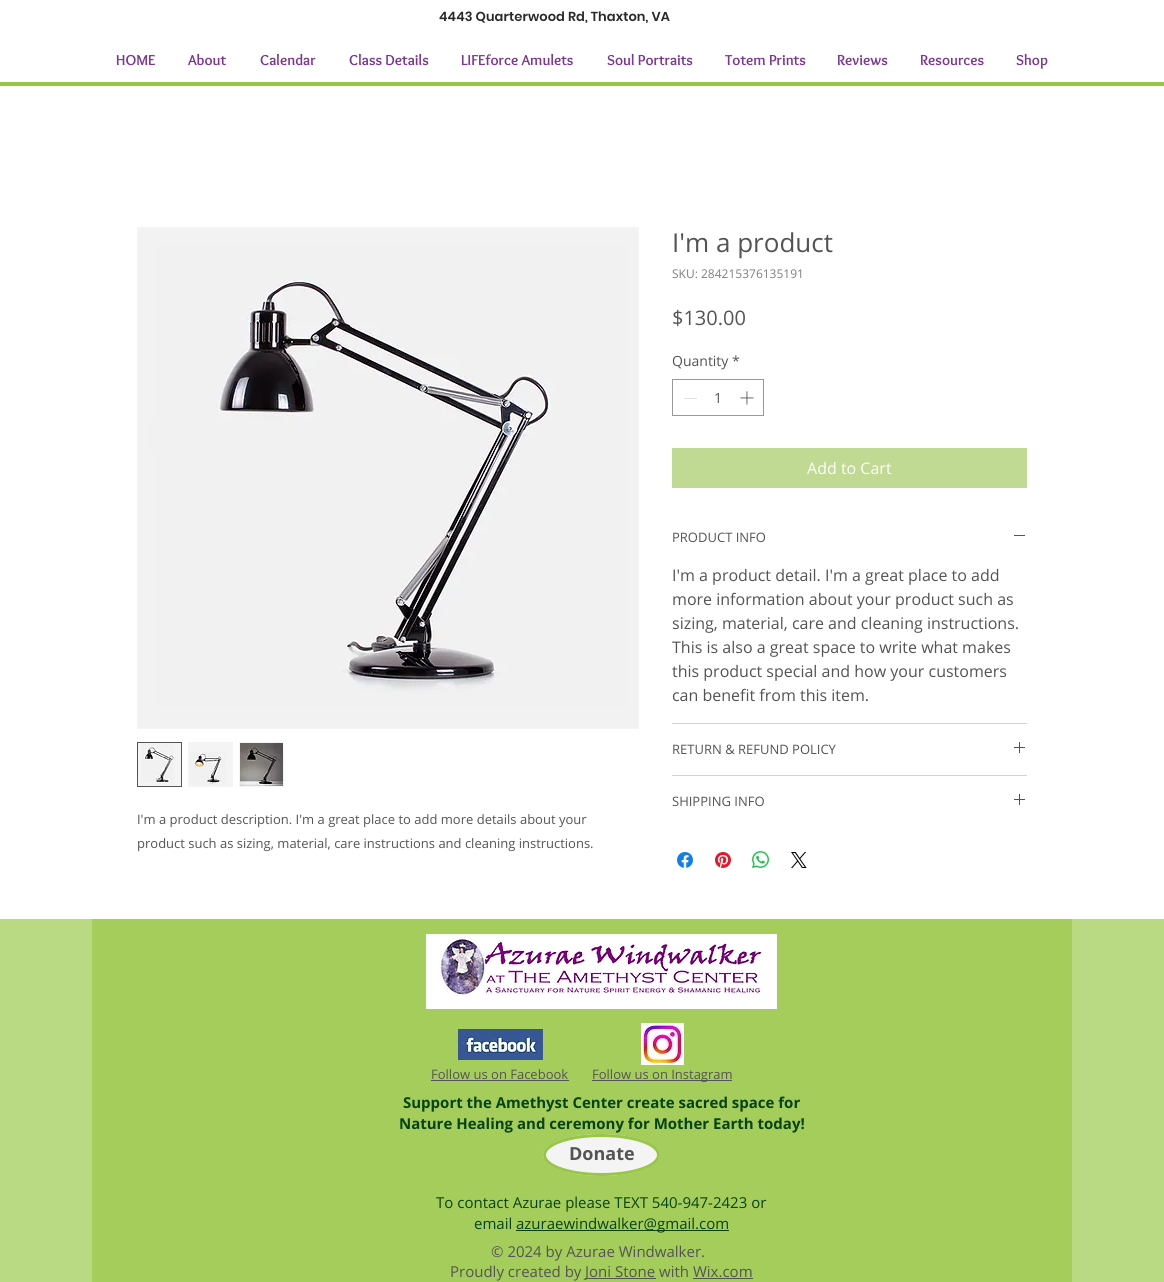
import math
import cairo

surface = cairo.ImageSurface(cairo.FORMAT_RGB24, 1164, 1282)
ctx = cairo.Context(surface)
options = cairo.FontOptions()
options.set_hint_metrics(cairo.HINT_METRICS_OFF)
options.set_hint_style(cairo.HINT_STYLE_NONE)
ctx.set_font_options(options)
ctx.set_miter_limit(4)


def set_color(code):
    ctx.set_source_rgb(*(v / 255 for v in bytes.fromhex(code[-6:])))


def draw_text(x, y, s, family, size, color, bold=False, italic=False):
    ctx.select_font_face(family, cairo.FONT_SLANT_ITALIC if italic else cairo.FONT_SLANT_NORMAL, cairo.FONT_WEIGHT_BOLD if bold else cairo.FONT_WEIGHT_NORMAL)
    ctx.set_font_size(size)
    set_color(color)
    ctx.move_to(x, y)
    ctx.show_text(s)


def draw_spaced(x, y, s, letter, word):
    ctx.move_to(x, y)
    for ch in s:
        ctx.show_text(ch)
        ctx.rel_move_to(letter + word * (ch == ' '), 0)


def fill_rect(x, y, w, h, color):
    set_color(color)
    ctx.rectangle(x, y, w, h)
    ctx.fill()


def draw_image(path, x, y, w, h):
    ctx.save()
    ctx.set_source_surface(cairo.ImageSurface.create_from_png(path), x, y)
    ctx.rectangle(x, y, w, h)
    ctx.fill()
    ctx.restore()


set_color("#ffffff")
ctx.paint()
ctx.select_font_face("Poppins SemiBold")
ctx.set_font_size(13)
set_color("#292929")
draw_spaced(439, 21, "4443 Quarterwood Rd, Thaxton, VA", 0.1, 0)
draw_text(116, 65, "HOME", "Overlock", 15, "#7c3495", bold=True)
draw_text(188, 65, "About", "Overlock", 15, "#7c3495", bold=True)
draw_text(260, 65, "Calendar", "Overlock", 15, "#7c3495", bold=True)
draw_text(349, 65, "Class Details", "Overlock", 15, "#7c3495", bold=True)
draw_text(461, 65, "LIFEforce Amulets", "Overlock", 15, "#7c3495", bold=True)
draw_text(607, 65, "Soul Portraits", "Overlock", 15, "#7c3495", bold=True)
draw_text(725, 65, "Totem Prints", "Overlock", 15, "#7c3495", bold=True)
draw_text(837, 65, "Reviews", "Overlock", 15, "#7c3495", bold=True)
draw_text(920, 65, "Resources", "Overlock", 15, "#7c3495", bold=True)
draw_text(1016, 65, "Shop", "Overlock", 15, "#7c3495", bold=True)
fill_rect(0, 82, 1164, 4, "#98c647")
draw_text(672, 252, "I'm a product", "Open Sans", 26, "#545454")
draw_text(672, 278, "SKU: 284215376135191", "Open Sans", 12, "#7e7e7e")
draw_text(672, 325, "$130.00", "Open Sans", 20, "#545454")
draw_text(672, 366, "Quantity", "Open Sans", 14, "#545454")
draw_text(732, 366, "*", "Open Sans", 14, "#545454")
ctx.rectangle(672.5, 379.5, 91, 36)
set_color("#989898")
ctx.set_line_width(1)
ctx.stroke()
fill_rect(684, 398, 13, 1, "#e3e3e3")
draw_text(714, 403, "1", "Open Sans", 14, "#545454")
draw_image("assets/img1.png", 740, 391, 14, 14)
fill_rect(672, 448, 355, 40, "#c0d993")
draw_text(807, 474, "Add to Cart", "Open Sans", 16, "#ffffff")
fill_rect(672, 723, 355, 1, "#d3d3d3")
draw_text(672, 542, "PRODUCT INFO", "Open Sans", 13, "#545454")
fill_rect(1014, 535, 11, 1, "#545454")
draw_text(672, 581, "I'm a product detail. I'm a great place to add", "Open Sans", 16, "#545454")
draw_text(672, 605, "more information about your product such as", "Open Sans", 16, "#545454")
draw_text(672, 629, "sizing, material, care and cleaning instructions.", "Open Sans", 16, "#545454")
draw_text(672, 653, "This is also a great space to write what makes", "Open Sans", 16, "#545454")
draw_text(672, 677, "this product special and how your customers", "Open Sans", 16, "#545454")
draw_text(672, 701, "can benefit from this item.", "Open Sans", 16, "#545454")
fill_rect(672, 775, 355, 1, "#d3d3d3")
draw_text(672, 754, "RETURN & REFUND POLICY", "Open Sans", 13, "#545454")
draw_image("assets/img2.png", 1014, 742, 11, 11)
draw_text(672, 806, "SHIPPING INFO", "Open Sans", 13, "#545454")
draw_image("assets/img2.png", 1014, 794, 11, 11)
draw_image("assets/img3.png", 677, 852, 16, 16)
draw_image("assets/img4.png", 715, 852, 16, 16)
draw_image("assets/img5.png", 752, 851, 17, 17)
draw_image("assets/img6.png", 791, 852, 16, 16)
ctx.rectangle(137.5, 227.5, 501, 501)
set_color("#f4f4f4")
ctx.stroke()
draw_image("assets/img7.png", 138, 228, 500, 500)
ctx.rectangle(137.5, 742.5, 44, 44)
ctx.fill_preserve()
set_color("#545454")
ctx.stroke()
draw_image("assets/img8.png", 142, 744, 32, 39)
fill_rect(188, 742, 45, 45, "#f4f4f4")
draw_image("assets/img9.png", 189, 752, 36, 33)
fill_rect(239, 742, 45, 45, "#f4f4f4")
draw_image("assets/img10.png", 240, 743, 43, 43)
draw_text(137, 824, "I'm a product description. I'm a great place to add more details about your", "Open Sans", 13, "#545454")
draw_text(137, 848, "product such as sizing, material, care instructions and cleaning instructions.", "Open Sans", 13, "#545454")
fill_rect(0, 919, 1164, 363, "#b9d982")
fill_rect(92, 919, 980, 363, "#a4cd5c")
draw_image("assets/img11.png", 426, 934, 351, 75)
draw_image("assets/img12.png", 458, 1029, 85, 31)
draw_image("assets/img13.png", 641, 1023, 43, 42)
draw_text(431, 1079, "Follow us on Facebook", "Open Sans", 13, "#545454")
fill_rect(431, 1080, 138, 1, "#545454")
fill_rect(592, 1080, 140, 1, "#545454")
draw_text(592, 1079, "Follow us on Instagram", "Open Sans", 13, "#545454")
draw_text(403, 1108, "Support the Amethyst Center create sacred space for", "Open Sans", 15, "#074311", bold=True)
draw_text(399, 1129, "Nature Healing and ceremony for Mother Earth today!", "Open Sans", 15, "#074311", bold=True)
set_color("#f4f4f4")
ctx.new_path()
ctx.move_to(601.5, 1134)
ctx.curve_to(634, 1134, 660, 1143.5, 660, 1155)
ctx.curve_to(660, 1166.5, 634, 1176, 601.5, 1176)
ctx.curve_to(569, 1176, 543, 1166.5, 543, 1155)
ctx.curve_to(543, 1143.5, 569, 1134, 601.5, 1134)
ctx.close_path()
ctx.fill()
ctx.new_path()
ctx.move_to(601.5, 1135.5)
ctx.curve_to(633, 1135.5, 658.5, 1144, 658.5, 1155)
ctx.curve_to(658.5, 1166, 633, 1174.5, 601.5, 1174.5)
ctx.curve_to(570, 1174.5, 544.5, 1166, 544.5, 1155)
ctx.curve_to(544.5, 1144, 570, 1135.5, 601.5, 1135.5)
ctx.close_path()
set_color("#98c647")
ctx.set_line_width(3)
ctx.stroke()
draw_text(569, 1160, "Donate", "Open Sans", 18, "#545454", bold=True)
draw_text(436, 1208, "To contact Azurae please TEXT 540-947-2423 or", "Open Sans", 15, "#074311")
draw_text(474, 1229, "email", "Open Sans", 15, "#074311")
fill_rect(516, 1230, 213, 1, "#074311")
draw_text(516, 1229, "azuraewindwalker@gmail.com", "Open Sans", 15, "#074311")
draw_text(491, 1257, "© 2024 by Azurae Windwalker.", "Open Sans", 15, "#545454")
draw_text(450, 1277, "Proudly created by", "Open Sans", 15, "#545454")
fill_rect(585, 1278, 71, 1, "#545454")
draw_text(585, 1277, "Joni Stone with Wix.com", "Open Sans", 15, "#545454")
fill_rect(693, 1278, 60, 1, "#545454")
surface.write_to_png("output.png")
